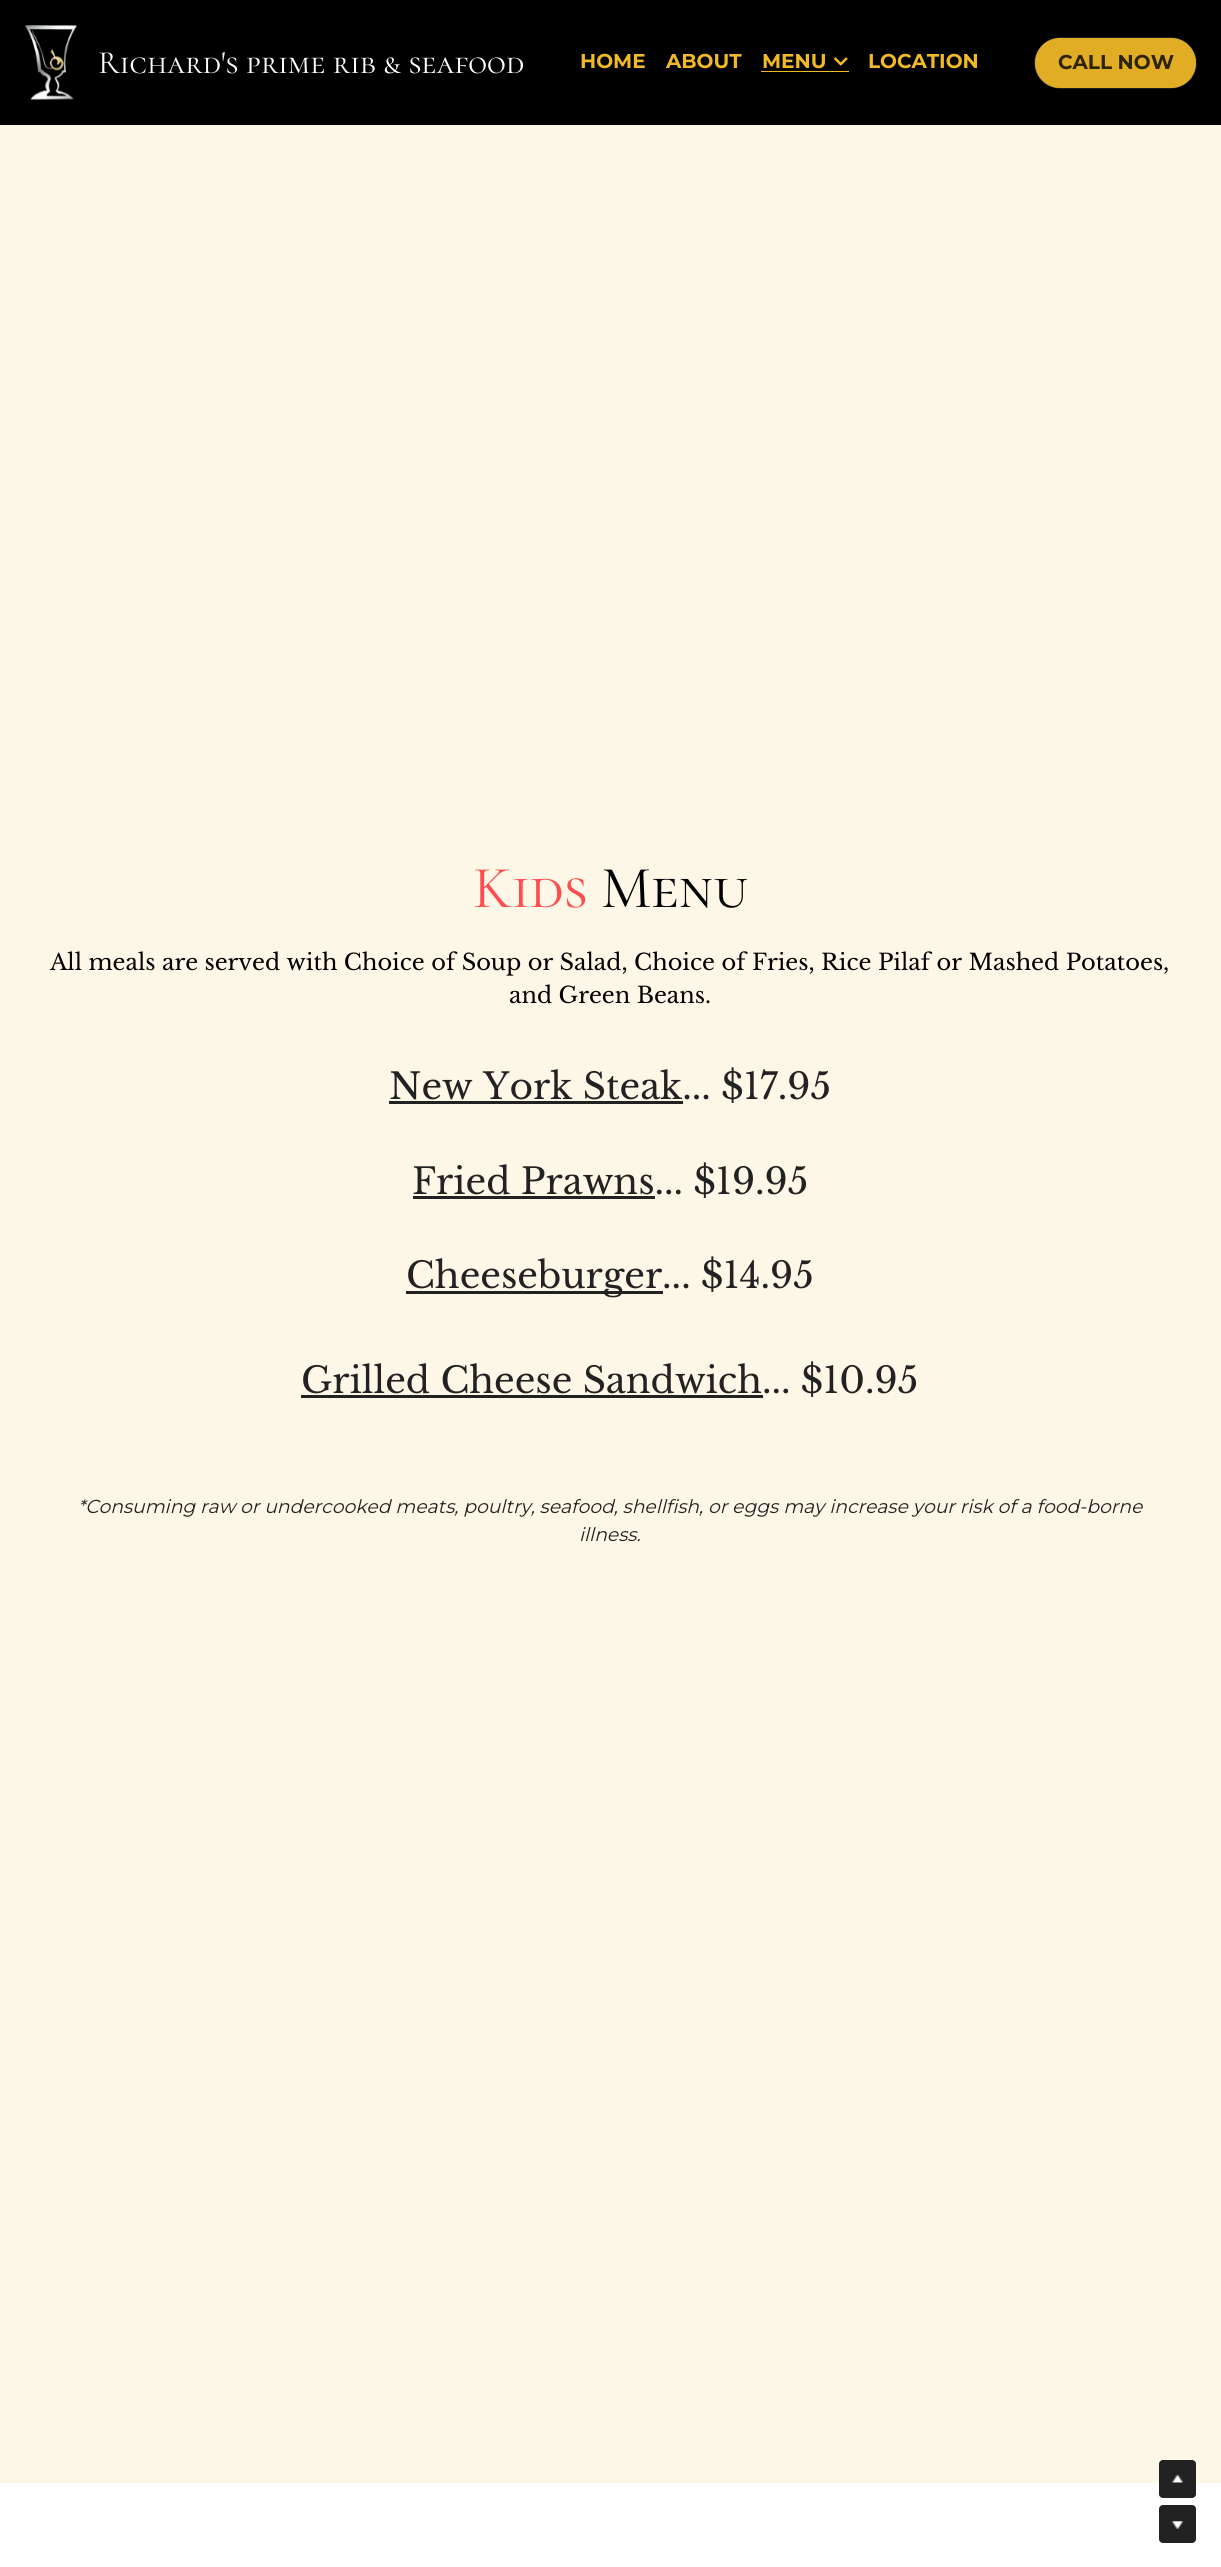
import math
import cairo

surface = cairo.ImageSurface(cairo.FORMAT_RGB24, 1221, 2567)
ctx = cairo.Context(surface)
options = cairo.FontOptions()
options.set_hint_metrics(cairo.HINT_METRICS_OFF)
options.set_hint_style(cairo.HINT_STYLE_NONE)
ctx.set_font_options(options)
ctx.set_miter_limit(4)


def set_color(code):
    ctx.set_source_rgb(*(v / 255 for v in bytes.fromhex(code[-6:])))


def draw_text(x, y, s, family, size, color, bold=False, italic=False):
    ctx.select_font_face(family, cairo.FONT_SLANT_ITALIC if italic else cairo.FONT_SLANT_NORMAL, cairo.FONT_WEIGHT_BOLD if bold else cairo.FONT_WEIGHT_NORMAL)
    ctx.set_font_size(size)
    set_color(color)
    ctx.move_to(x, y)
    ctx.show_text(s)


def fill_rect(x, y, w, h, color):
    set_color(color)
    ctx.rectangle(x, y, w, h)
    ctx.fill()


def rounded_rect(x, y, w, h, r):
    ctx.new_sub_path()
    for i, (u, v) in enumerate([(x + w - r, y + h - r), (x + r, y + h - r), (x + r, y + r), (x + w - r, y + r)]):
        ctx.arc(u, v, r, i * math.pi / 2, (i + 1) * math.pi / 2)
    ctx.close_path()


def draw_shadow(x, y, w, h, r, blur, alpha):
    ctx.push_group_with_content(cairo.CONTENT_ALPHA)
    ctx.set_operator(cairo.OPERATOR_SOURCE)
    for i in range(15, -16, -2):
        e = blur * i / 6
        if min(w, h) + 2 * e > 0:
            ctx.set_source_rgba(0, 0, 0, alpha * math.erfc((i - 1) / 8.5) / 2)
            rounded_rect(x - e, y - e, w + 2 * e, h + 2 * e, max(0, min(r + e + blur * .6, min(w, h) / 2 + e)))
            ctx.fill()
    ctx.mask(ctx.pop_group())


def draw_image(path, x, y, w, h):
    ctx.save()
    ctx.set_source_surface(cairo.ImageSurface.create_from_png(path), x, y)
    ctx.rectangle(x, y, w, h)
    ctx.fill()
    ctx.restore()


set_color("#ffffff")
ctx.paint()
fill_rect(0, 0, 1221, 125, "#000000")
draw_image("assets/img1.png", 25, 25, 52, 75)
draw_text(98, 73, "Richard's prime rib & seafood", "Cormorant SC", 32.5, "#ffffff")
draw_text(580, 68, "HOME", "Montserrat", 20, "#f1b927", bold=True)
draw_text(666, 68, "ABOUT", "Montserrat", 20, "#f1b927", bold=True)
fill_rect(761, 71, 88, 1, "#f1b927")
draw_text(762, 68, "MENU", "Montserrat", 20, "#f1b927", bold=True)
draw_image("assets/img2.png", 834, 57, 14, 9)
draw_text(868, 68, "LOCATION", "Montserrat", 20, "#f1b927", bold=True)
set_color("#ffffff")
draw_shadow(1035, 38, 161, 50, 25, 0.5, 0.5)
set_color("#e1ad24")
rounded_rect(1035, 38, 161, 50, 25)
ctx.fill()
draw_text(1058, 69, "CALL NOW", "Montserrat", 20, "#2d2307", bold=True)
fill_rect(0, 125, 1221, 2358, "#fdf7e7")
draw_text(473, 907, "Kids", "Cormorant SC", 60, "#ff4d4d")
draw_text(601, 907, "Menu", "Cormorant SC", 60, "#000000")
draw_text(50, 970, "All meals are served with Choice of Soup or Salad, Choice of Fries, Rice Pilaf or Mashed Potatoes,", "Libre Baskerville", 22.5, "#000000")
draw_text(509, 1003, "and Green Beans.", "Libre Baskerville", 22.5, "#000000")
fill_rect(389, 1101, 294, 3, "#222222")
draw_text(389, 1099, "New York Steak... $17.95", "Libre Baskerville", 36, "#222222")
fill_rect(413, 1196, 242, 3, "#222222")
draw_text(412, 1194, "Fried Prawns... $19.95", "Libre Baskerville", 36, "#222222")
fill_rect(406, 1291, 257, 3, "#222222")
draw_text(406, 1288, "Cheeseburger... $14.95", "Libre Baskerville", 36, "#222222")
fill_rect(301, 1395, 462, 3, "#222222")
draw_text(301, 1393, "Grilled Cheese Sandwich... $10.95", "Libre Baskerville", 36, "#222222")
draw_text(78, 1513, "*Consuming raw or undercooked meats, poultry, seafood, shellfish, or eggs may increase your risk of a food-borne", "Montserrat", 18.75, "#222222", italic=True)
draw_text(579, 1541, "illness.", "Montserrat", 18.75, "#222222", italic=True)
rounded_rect(1159, 2460, 37, 38, 4)
ctx.fill()
draw_image("assets/img3.png", 1171, 2474, 12, 9)
rounded_rect(1159, 2505, 37, 38, 4)
ctx.fill()
draw_image("assets/img4.png", 1171, 2521, 12, 8)
surface.write_to_png("output.png")
